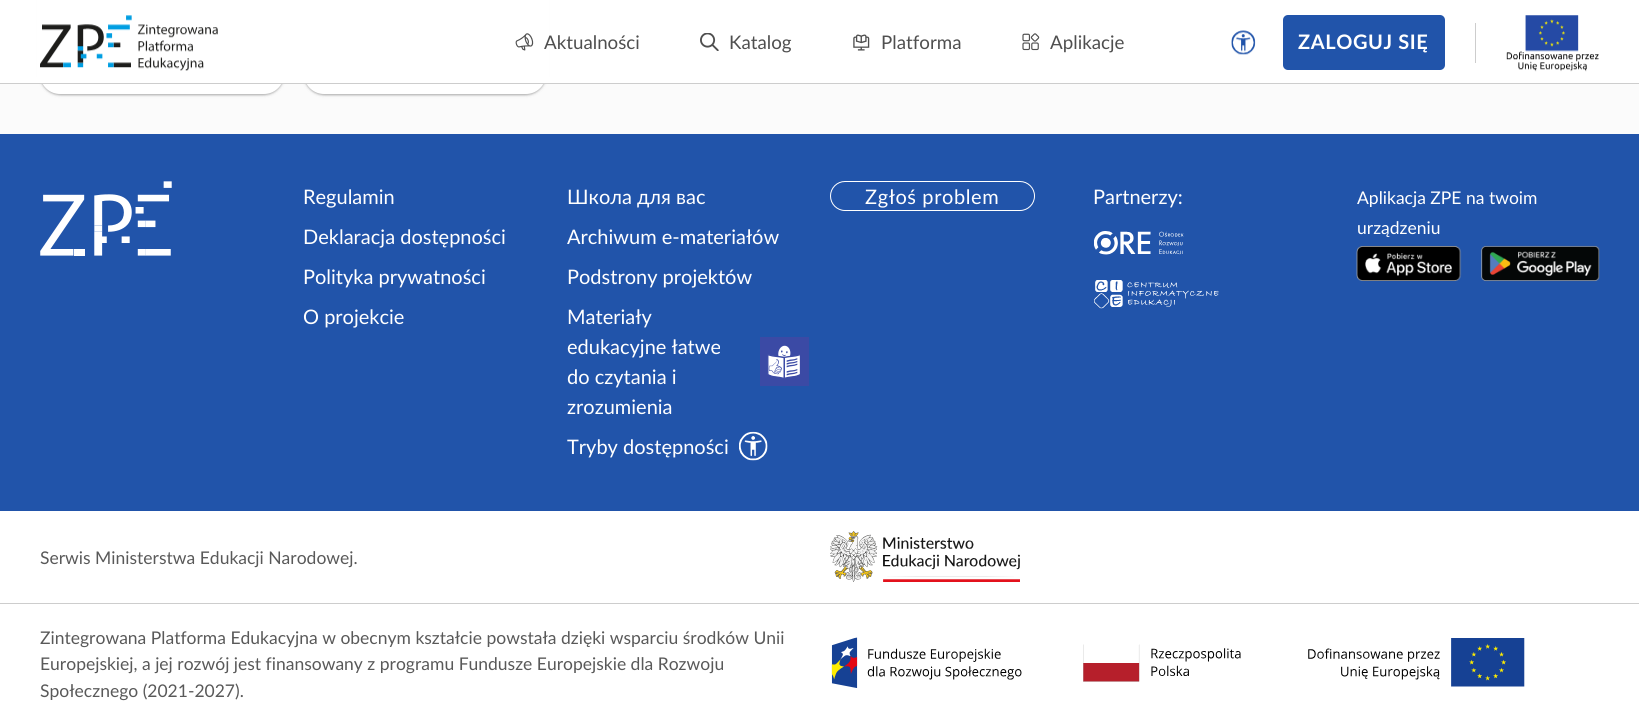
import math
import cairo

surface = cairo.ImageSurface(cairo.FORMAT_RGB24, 1639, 722)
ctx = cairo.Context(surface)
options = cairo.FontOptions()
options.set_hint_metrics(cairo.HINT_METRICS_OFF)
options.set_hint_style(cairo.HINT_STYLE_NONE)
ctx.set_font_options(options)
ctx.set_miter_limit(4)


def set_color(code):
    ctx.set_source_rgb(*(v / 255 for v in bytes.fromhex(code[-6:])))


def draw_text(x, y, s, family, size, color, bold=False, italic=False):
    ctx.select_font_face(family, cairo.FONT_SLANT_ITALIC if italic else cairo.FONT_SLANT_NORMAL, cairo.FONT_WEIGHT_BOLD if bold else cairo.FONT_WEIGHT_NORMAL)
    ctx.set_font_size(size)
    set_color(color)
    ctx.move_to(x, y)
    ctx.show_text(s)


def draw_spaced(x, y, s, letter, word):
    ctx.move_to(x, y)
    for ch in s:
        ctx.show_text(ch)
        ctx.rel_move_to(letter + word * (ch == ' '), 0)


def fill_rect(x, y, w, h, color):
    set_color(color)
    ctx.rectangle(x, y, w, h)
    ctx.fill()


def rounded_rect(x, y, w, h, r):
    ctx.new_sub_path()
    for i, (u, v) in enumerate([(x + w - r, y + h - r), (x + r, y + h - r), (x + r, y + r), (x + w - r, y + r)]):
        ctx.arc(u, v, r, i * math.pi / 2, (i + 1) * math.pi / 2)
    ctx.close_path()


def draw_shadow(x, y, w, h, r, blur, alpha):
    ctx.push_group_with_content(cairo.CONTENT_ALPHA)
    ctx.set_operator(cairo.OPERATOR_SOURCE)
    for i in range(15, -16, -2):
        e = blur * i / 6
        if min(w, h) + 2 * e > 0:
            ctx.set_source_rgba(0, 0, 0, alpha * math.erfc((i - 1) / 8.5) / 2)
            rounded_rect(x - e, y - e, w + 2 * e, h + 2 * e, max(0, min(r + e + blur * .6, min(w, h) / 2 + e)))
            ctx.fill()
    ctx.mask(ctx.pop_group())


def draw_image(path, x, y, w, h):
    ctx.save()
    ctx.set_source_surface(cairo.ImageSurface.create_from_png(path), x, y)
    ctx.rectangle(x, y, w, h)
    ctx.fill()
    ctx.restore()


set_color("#ffffff")
ctx.paint()
fill_rect(0, 84, 1639, 50, "#fbfbfb")
set_color("#000000")
draw_shadow(40, -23, 244, 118, 20, 1, 0.24)
draw_shadow(40, -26, 244, 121, 20, 2, 0.12)
set_color("#ffffff")
ctx.new_path()
ctx.move_to(40, -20)
ctx.line_to(284, -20)
ctx.line_to(284, 74)
ctx.curve_to(284, 85, 275, 94, 264, 94)
ctx.line_to(60, 94)
ctx.curve_to(49, 94, 40, 85, 40, 74)
ctx.close_path()
ctx.fill()
set_color("#000000")
draw_shadow(304, -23, 242, 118, 20, 1, 0.24)
draw_shadow(304, -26, 242, 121, 20, 2, 0.12)
set_color("#ffffff")
ctx.new_path()
ctx.move_to(304, -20)
ctx.line_to(546, -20)
ctx.line_to(546, 74)
ctx.curve_to(546, 85, 537, 94, 526, 94)
ctx.line_to(324, 94)
ctx.curve_to(313, 94, 304, 85, 304, 74)
ctx.close_path()
ctx.fill()
fill_rect(37, 0, 512, 83, "#ffffff")
draw_image("assets/img1.png", 40, 15, 178, 56)
draw_image("assets/img2.png", 515, 33, 19, 18)
draw_text(544, 49, "Aktualności", "Lato", 18.75, "#4f4f4f")
draw_image("assets/img3.png", 700, 33, 19, 18)
draw_text(729, 49, "Katalog", "Lato", 18.75, "#4f4f4f")
draw_image("assets/img4.png", 853, 34, 17, 17)
draw_text(881, 49, "Platforma", "Lato", 18.75, "#4f4f4f")
draw_image("assets/img5.png", 1022, 33, 18, 18)
draw_text(1050, 49, "Aplikacje", "Lato", 18.75, "#4f4f4f")
draw_image("assets/img6.png", 1231, 30, 25, 25)
set_color("#2154aa")
rounded_rect(1283, 15, 162, 55, 5)
ctx.fill()
ctx.select_font_face("Lato", cairo.FONT_SLANT_NORMAL, cairo.FONT_WEIGHT_BOLD)
ctx.set_font_size(20)
set_color("#ffffff")
draw_spaced(1298, 49, "ZALOGUJ SIĘ", 0.6, 0)
fill_rect(1475, 23, 1, 40, "#cdcdcd")
draw_image("assets/img7.png", 1506, 15, 93, 57)
fill_rect(0, 83, 1639, 1, "#cdcdcd")
fill_rect(0, 134, 1639, 377, "#2154aa")
draw_image("assets/img8.png", 40, 181, 132, 75)
draw_text(303, 204, "Regulamin", "Lato", 20, "#ffffff")
draw_text(303, 244, "Deklaracja dostępności", "Lato", 20, "#ffffff")
draw_text(303, 284, "Polityka prywatności", "Lato", 20, "#ffffff")
draw_text(303, 324, "O projekcie", "Lato", 20, "#ffffff")
draw_text(567, 204, "Школа для вас", "Lato", 20, "#ffffff")
draw_text(567, 244, "Archiwum e-materiałów", "Lato", 20, "#ffffff")
draw_text(567, 284, "Podstrony projektów", "Lato", 20, "#ffffff")
draw_text(567, 324, "Materiały", "Lato", 20, "#ffffff")
draw_text(567, 354, "edukacyjne łatwe", "Lato", 20, "#ffffff")
draw_text(567, 384, "do czytania i", "Lato", 20, "#ffffff")
draw_text(567, 414, "zrozumienia", "Lato", 20, "#ffffff")
draw_image("assets/img9.png", 760, 337, 49, 49)
draw_text(567, 454, "Tryby dostępności", "Lato", 20, "#ffffff")
draw_image("assets/img10.png", 739, 431, 29, 30)
rounded_rect(830.5, 181.5, 204, 29, 14.5)
ctx.set_line_width(1)
ctx.stroke()
draw_spaced(865, 204, "Zgłoś problem", 0.6, 0)
draw_text(1093, 204, "Partnerzy:", "Lato", 20, "#ffffff")
draw_image("assets/img11.png", 1094, 231, 90, 24)
draw_image("assets/img12.png", 1094, 280, 125, 29)
draw_text(1357, 204, "Aplikacja ZPE na twoim", "Lato", 17.5, "#ffffff")
draw_text(1357, 234, "urządzeniu", "Lato", 17.5, "#ffffff")
draw_image("assets/img13.png", 1356, 246, 106, 35)
draw_image("assets/img14.png", 1481, 245, 119, 37)
draw_text(40, 564, "Serwis Ministerstwa Edukacji Narodowej.", "Lato", 17.5, "#595959")
draw_image("assets/img15.png", 830, 531, 190, 51)
fill_rect(0, 603, 1639, 1, "#cdcdcd")
draw_text(40, 644, "Zintegrowana Platforma Edukacyjna w obecnym kształcie powstała dzięki wsparciu środków Unii", "Lato", 17.5, "#595959")
draw_text(40, 670, "Europejskiej, a jej rozwój jest finansowany z programu Fundusze Europejskie dla Rozwoju", "Lato", 17.5, "#595959")
draw_text(40, 697, "Społecznego (2021-2027).", "Lato", 17.5, "#595959")
draw_image("assets/img16.png", 831, 637, 191, 51)
draw_image("assets/img17.png", 1083, 644, 158, 38)
draw_image("assets/img18.png", 1308, 638, 217, 49)
surface.write_to_png("output.png")
